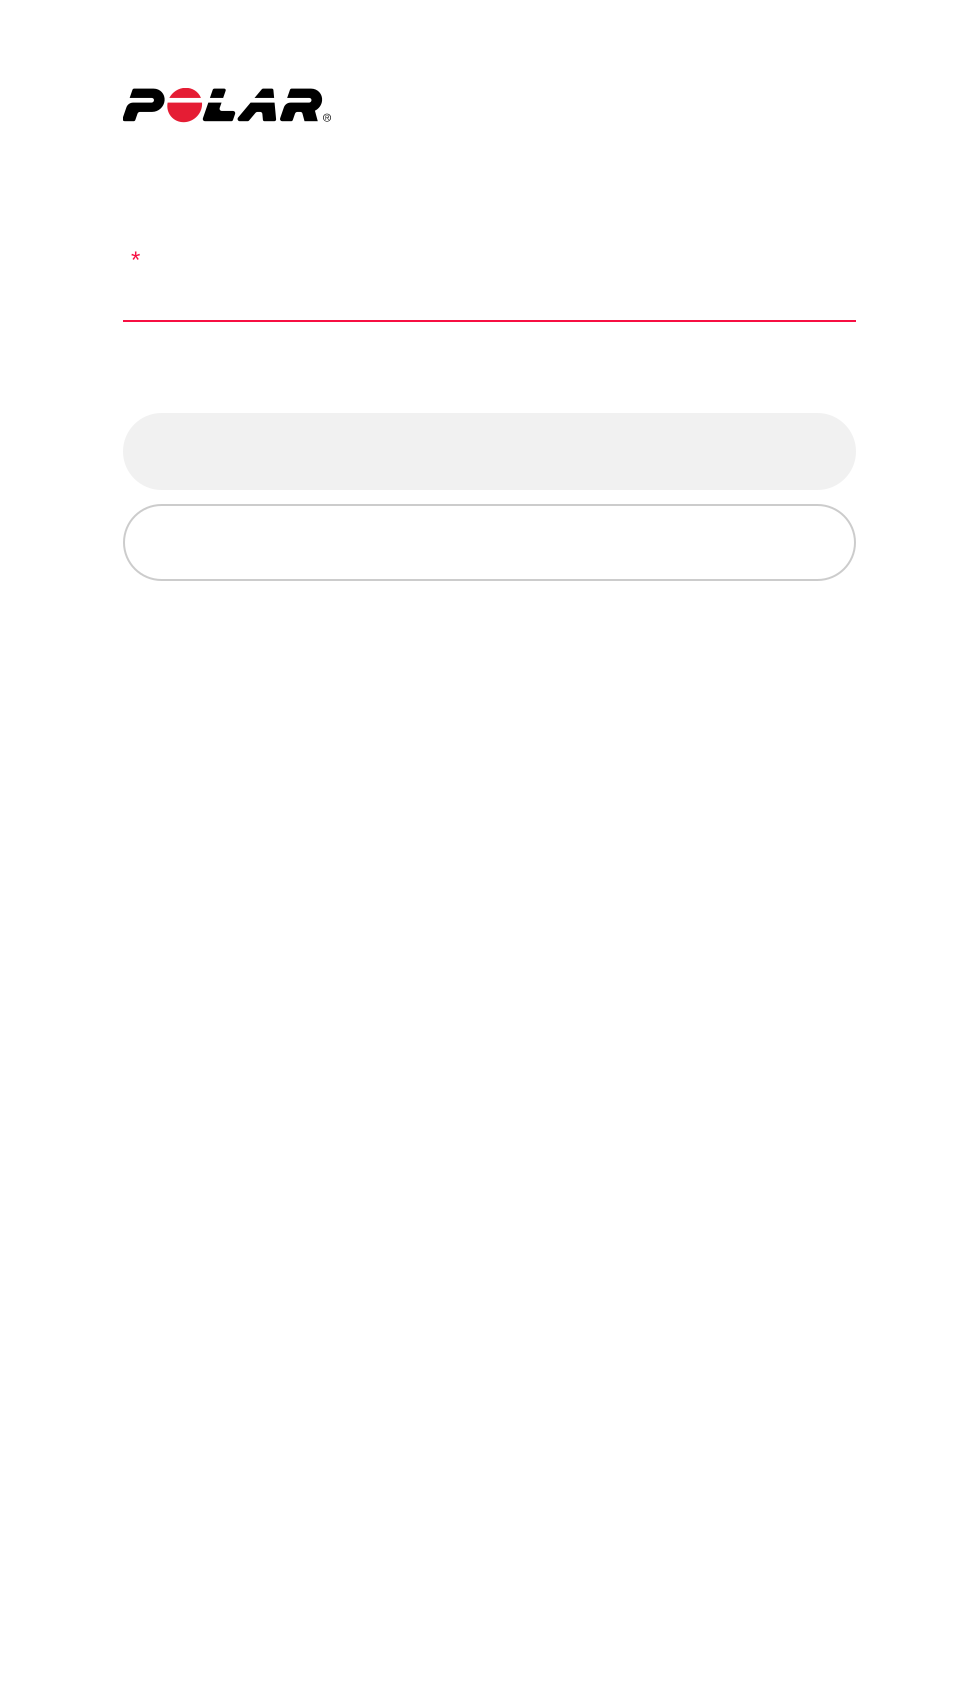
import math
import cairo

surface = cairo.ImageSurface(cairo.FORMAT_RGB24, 978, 1699)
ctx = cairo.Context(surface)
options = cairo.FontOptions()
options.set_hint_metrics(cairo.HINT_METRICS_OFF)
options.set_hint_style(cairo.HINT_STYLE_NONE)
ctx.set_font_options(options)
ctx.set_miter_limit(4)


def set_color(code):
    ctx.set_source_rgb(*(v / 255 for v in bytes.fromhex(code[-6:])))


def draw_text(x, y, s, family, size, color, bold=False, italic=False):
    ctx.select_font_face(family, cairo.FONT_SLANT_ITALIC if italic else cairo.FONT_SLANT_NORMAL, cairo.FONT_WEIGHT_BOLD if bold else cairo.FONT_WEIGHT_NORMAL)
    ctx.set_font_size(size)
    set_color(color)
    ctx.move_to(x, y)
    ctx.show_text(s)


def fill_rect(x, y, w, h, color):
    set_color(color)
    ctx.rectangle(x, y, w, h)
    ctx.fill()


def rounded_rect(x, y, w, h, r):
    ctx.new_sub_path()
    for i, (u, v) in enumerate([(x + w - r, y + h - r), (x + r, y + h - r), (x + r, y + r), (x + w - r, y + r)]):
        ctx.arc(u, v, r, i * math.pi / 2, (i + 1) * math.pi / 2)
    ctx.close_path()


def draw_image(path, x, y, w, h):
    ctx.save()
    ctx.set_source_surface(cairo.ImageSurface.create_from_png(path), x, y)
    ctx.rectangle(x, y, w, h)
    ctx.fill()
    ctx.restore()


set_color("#ffffff")
ctx.paint()
draw_image("assets/img1.png", 123, 88, 208, 35)
draw_text(131, 268, "*", "Liberation Sans", 24, "#f70f42")
fill_rect(123, 320, 733, 2, "#f70f42")
set_color("#f1f1f1")
rounded_rect(123, 413, 733, 77, 38.5)
ctx.fill()
rounded_rect(124, 505, 731, 75, 37.5)
set_color("#cccccc")
ctx.stroke()
surface.write_to_png("output.png")
